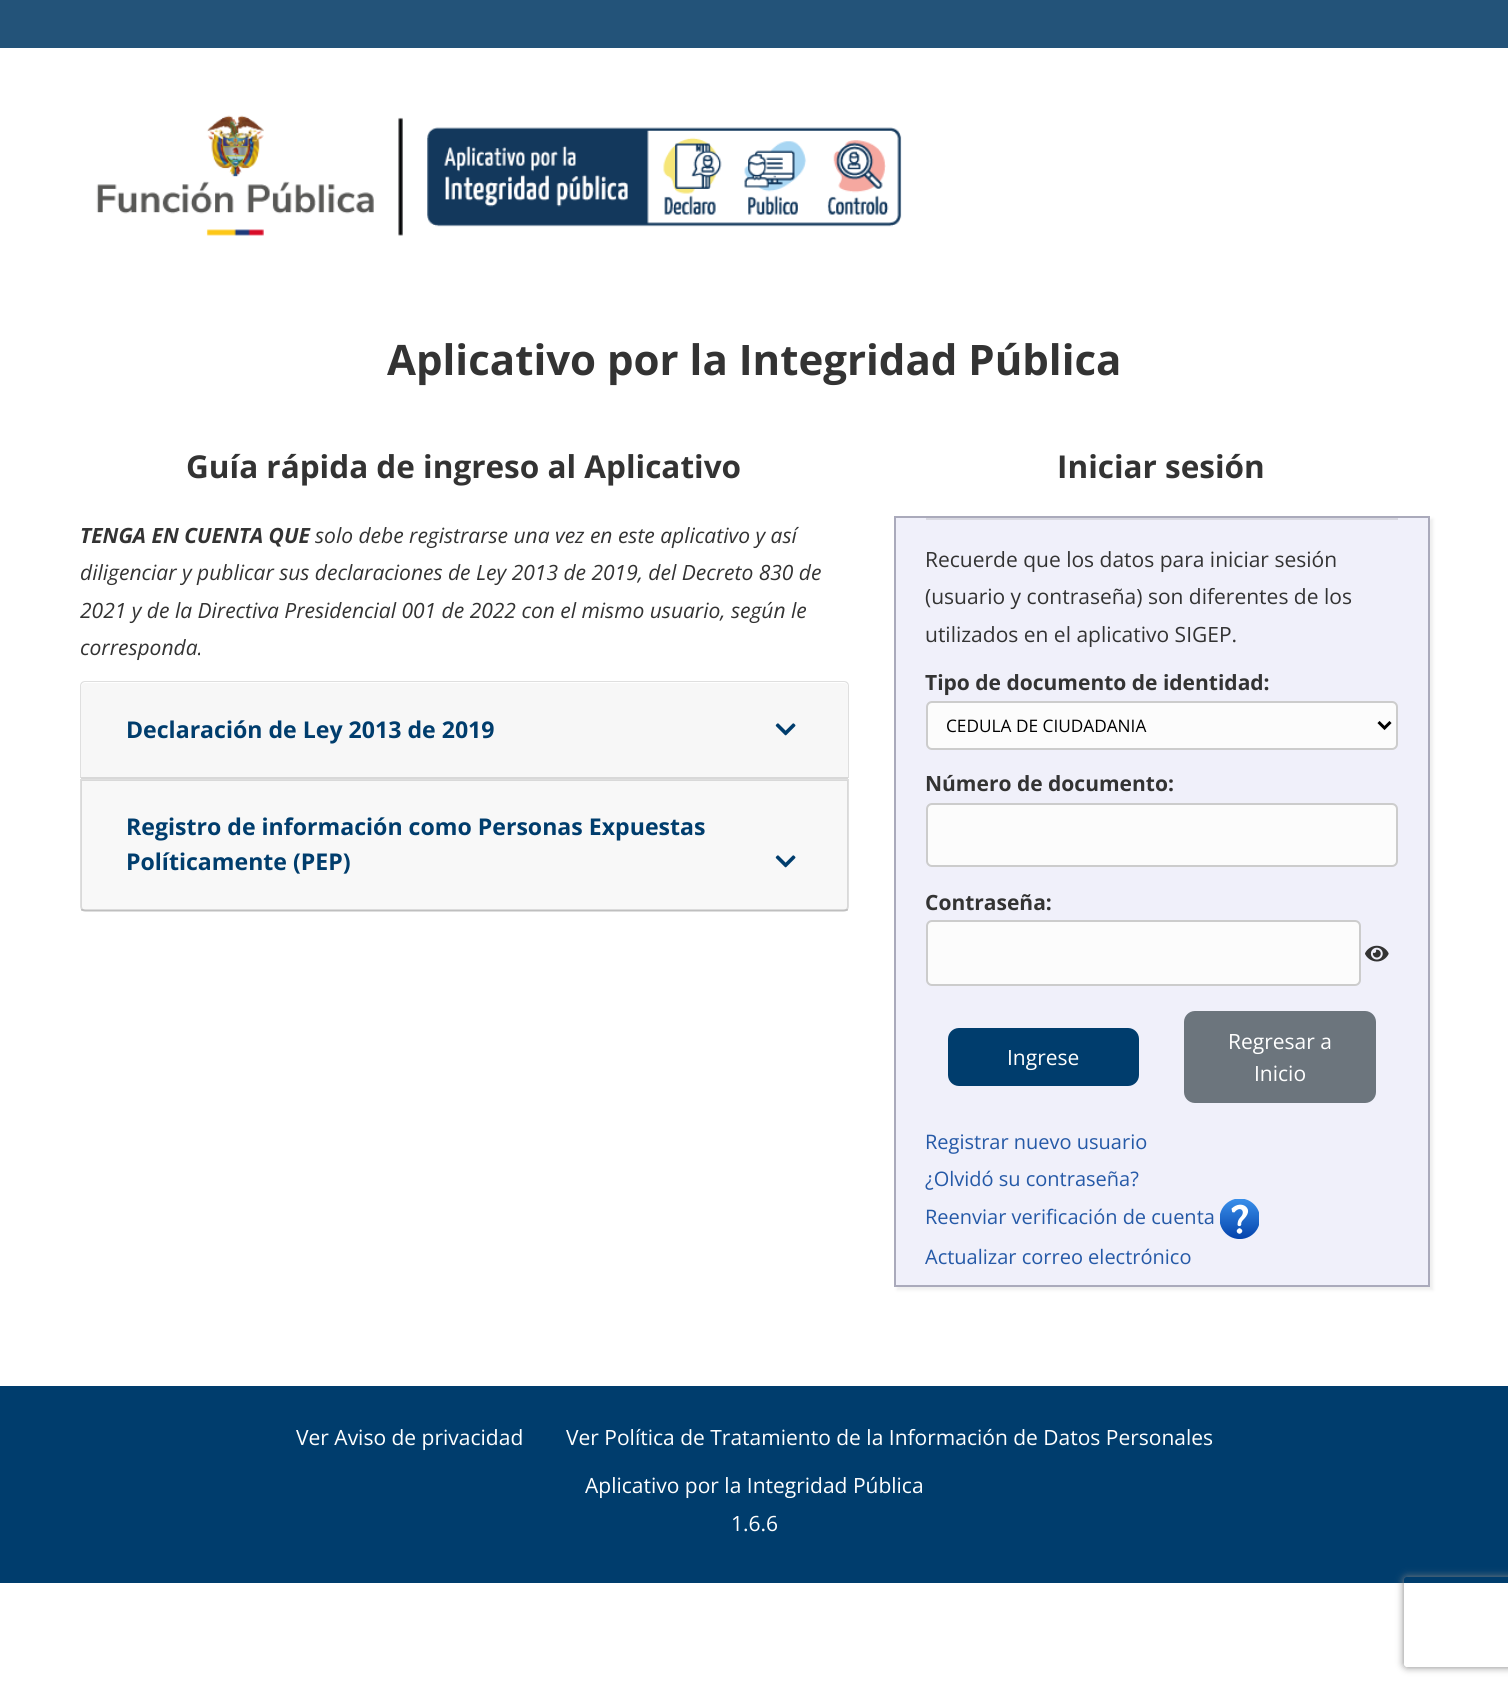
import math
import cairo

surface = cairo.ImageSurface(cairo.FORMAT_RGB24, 1508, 1687)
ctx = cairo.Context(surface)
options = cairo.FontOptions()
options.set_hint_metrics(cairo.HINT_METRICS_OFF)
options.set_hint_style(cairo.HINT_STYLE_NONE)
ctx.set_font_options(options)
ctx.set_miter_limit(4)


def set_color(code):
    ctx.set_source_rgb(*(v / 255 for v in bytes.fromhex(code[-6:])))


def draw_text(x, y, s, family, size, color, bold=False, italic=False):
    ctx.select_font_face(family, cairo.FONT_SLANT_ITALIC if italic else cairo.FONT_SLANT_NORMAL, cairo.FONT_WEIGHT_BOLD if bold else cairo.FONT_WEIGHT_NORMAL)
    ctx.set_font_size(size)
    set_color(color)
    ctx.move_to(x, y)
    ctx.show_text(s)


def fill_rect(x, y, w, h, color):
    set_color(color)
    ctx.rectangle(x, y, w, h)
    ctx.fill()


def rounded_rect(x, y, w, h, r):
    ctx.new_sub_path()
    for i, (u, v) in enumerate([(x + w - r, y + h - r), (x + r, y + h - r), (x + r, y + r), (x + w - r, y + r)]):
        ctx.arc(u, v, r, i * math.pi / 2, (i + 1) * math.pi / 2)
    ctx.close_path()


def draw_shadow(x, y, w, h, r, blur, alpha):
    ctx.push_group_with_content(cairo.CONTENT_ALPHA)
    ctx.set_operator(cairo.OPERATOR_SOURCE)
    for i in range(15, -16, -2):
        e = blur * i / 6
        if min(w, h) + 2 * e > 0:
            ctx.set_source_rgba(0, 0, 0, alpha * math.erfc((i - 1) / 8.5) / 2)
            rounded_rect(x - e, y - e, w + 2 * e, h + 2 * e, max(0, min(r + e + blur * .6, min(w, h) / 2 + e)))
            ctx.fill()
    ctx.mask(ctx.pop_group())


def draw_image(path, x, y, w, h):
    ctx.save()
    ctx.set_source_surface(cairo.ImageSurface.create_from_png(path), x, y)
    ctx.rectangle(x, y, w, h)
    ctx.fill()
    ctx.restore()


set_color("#ffffff")
ctx.paint()
fill_rect(0, 0, 1508, 48, "#235379")
draw_image("assets/img1.png", 96, 115, 806, 121)
draw_text(387, 375, "Aplicativo por la Integridad Pública", "Open Sans", 42, "#333333", bold=True)
draw_text(186, 478, "Guía rápida de ingreso al Aplicativo", "Open Sans", 31.5, "#333333", bold=True)
draw_text(80, 543, "TENGA EN CUENTA QUE", "Open Sans", 21, "#333333", bold=True, italic=True)
draw_text(315, 543, "solo debe registrarse una vez en este aplicativo y así", "Open Sans", 21, "#333333", italic=True)
draw_text(80, 580, "diligenciar y publicar sus declaraciones de Ley 2013 de 2019, del Decreto 830 de", "Open Sans", 21, "#333333", italic=True)
draw_text(80, 618, "2021 y de la Directiva Presidencial 001 de 2022 con el mismo usuario, según le", "Open Sans", 21, "#333333", italic=True)
draw_text(80, 655, "corresponda.", "Open Sans", 21, "#333333", italic=True)
set_color("#dfdfdf")
ctx.set_fill_rule(cairo.FILL_RULE_EVEN_ODD)
ctx.new_path()
ctx.move_to(85, 681)
ctx.line_to(844, 681)
ctx.curve_to(847, 681, 849, 683, 849, 686)
ctx.line_to(849, 778)
ctx.line_to(80, 778)
ctx.line_to(80, 686)
ctx.curve_to(80, 683, 82, 681, 85, 681)
ctx.close_path()
ctx.move_to(85, 682)
ctx.line_to(844, 682)
ctx.curve_to(846, 682, 848, 684, 848, 686)
ctx.line_to(848, 778)
ctx.line_to(81, 778)
ctx.line_to(81, 686)
ctx.curve_to(81, 684, 83, 682, 85, 682)
ctx.close_path()
ctx.fill()
set_color("#f7f7f7")
ctx.new_path()
ctx.move_to(85, 683)
ctx.line_to(844, 683)
ctx.curve_to(846, 683, 848, 685, 848, 687)
ctx.line_to(848, 779)
ctx.line_to(81, 779)
ctx.line_to(81, 687)
ctx.curve_to(81, 685, 83, 683, 85, 683)
ctx.close_path()
ctx.fill()
fill_rect(81, 777, 767, 2, "#d8d8d8")
draw_text(126, 738, "Declaración de Ley 2013 de 2019", "Open Sans", 23.1, "#003d6d", bold=True)
draw_image("assets/img2.png", 775, 723, 21, 13)
ctx.new_path()
ctx.move_to(81, 780)
ctx.line_to(848, 780)
ctx.line_to(848, 906)
ctx.curve_to(848, 909, 846, 911, 843, 911)
ctx.line_to(86, 911)
ctx.curve_to(83, 911, 81, 909, 81, 906)
ctx.close_path()
set_color("#dfdfdf")
ctx.stroke()
ctx.set_source_rgba(0, 0, 0, 0.03)
ctx.rectangle(81, 780, 767, 131)
ctx.fill()
ctx.set_source_rgba(0, 0, 0, 0.12)
ctx.rectangle(81, 909, 767, 2)
ctx.fill()
draw_text(126, 835, "Registro de información como Personas Expuestas", "Open Sans", 23.1, "#003d6d", bold=True)
draw_text(126, 870, "Políticamente (PEP)", "Open Sans", 23.1, "#003d6d", bold=True)
draw_image("assets/img3.png", 775, 855, 21, 13)
draw_text(1057, 478, "Iniciar sesión", "Open Sans", 31.5, "#333333", bold=True)
set_color("#eeeeee")
draw_shadow(897, 519, 536, 771, 0, 1.5, 1)
set_color("#f0f0fa")
ctx.rectangle(895, 517, 534, 769)
ctx.fill_preserve()
set_color("#aaaabb")
ctx.stroke()
fill_rect(926, 518, 472, 2, "#d8d8e1")
draw_text(925, 567, "Recuerde que los datos para iniciar sesión", "Open Sans", 21, "#333333")
draw_text(925, 604, "(usuario y contraseña) son diferentes de los", "Open Sans", 21, "#333333")
draw_text(925, 642, "utilizados en el aplicativo SIGEP.", "Open Sans", 21, "#333333")
draw_text(925, 690, "Tipo de documento de identidad:", "Open Sans", 21, "#333333", bold=True)
set_color("#fcfcfc")
rounded_rect(927, 702, 470, 47, 5)
ctx.fill_preserve()
set_color("#cccccc")
ctx.stroke()
ctx.new_path()
ctx.move_to(1378.5, 722)
ctx.line_to(1384.5, 728)
ctx.line_to(1390.5, 722)
set_color("#000000")
ctx.set_line_width(3)
ctx.stroke()
draw_text(946, 732, "CEDULA DE CIUDADANIA", "Open Sans", 17.25, "#000000")
draw_text(925, 791, "Número de documento:", "Open Sans", 21, "#333333", bold=True)
set_color("#fcfcfc")
rounded_rect(927, 804, 470, 62, 5)
ctx.fill_preserve()
set_color("#cccccc")
ctx.set_line_width(2)
ctx.stroke()
draw_text(925, 910, "Contraseña:", "Open Sans", 21, "#333333", bold=True)
set_color("#fcfcfc")
rounded_rect(927, 921, 433, 64, 5)
ctx.fill_preserve()
set_color("#cccccc")
ctx.stroke()
draw_image("assets/img4.png", 1365, 945, 24, 17)
set_color("#003d6d")
rounded_rect(949, 1029, 189, 56, 10)
ctx.fill_preserve()
ctx.stroke()
draw_text(1007, 1065, "Ingrese", "Open Sans", 21, "#ffffff")
set_color("#6c757d")
rounded_rect(1185, 1012, 190, 90, 10)
ctx.fill_preserve()
ctx.stroke()
draw_text(1228, 1049, "Regresar a", "Open Sans", 21, "#ffffff")
draw_text(1254, 1081, "Inicio", "Open Sans", 21, "#ffffff")
draw_text(925, 1149, "Registrar nuevo usuario", "Open Sans", 20, "#2559a7")
draw_text(925, 1186, "¿Olvidó su contraseña?", "Open Sans", 20, "#2559a7")
draw_text(925, 1224, "Reenviar verificación de cuenta", "Open Sans", 20, "#2559a7")
draw_image("assets/img5.png", 1220, 1199, 39, 40)
draw_text(925, 1264, "Actualizar correo electrónico", "Open Sans", 20, "#2559a7")
fill_rect(0, 1386, 1508, 197, "#003d6d")
draw_text(296, 1445, "Ver Aviso de privacidad", "Open Sans", 21, "#ffffff")
draw_text(566, 1445, "Ver Política de Tratamiento de la Información de Datos Personales", "Open Sans", 21, "#ffffff")
draw_text(585, 1493, "Aplicativo por la Integridad Pública", "Open Sans", 21, "#ffffff")
draw_text(731, 1531, "1.6.6", "Open Sans", 21, "#ffffff")
ctx.save()
ctx.new_path()
ctx.move_to(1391, 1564)
ctx.line_to(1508, 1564)
ctx.line_to(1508, 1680)
ctx.line_to(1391, 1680)
ctx.close_path()
ctx.move_to(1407, 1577)
ctx.line_to(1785, 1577)
ctx.curve_to(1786.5, 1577, 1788, 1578.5, 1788, 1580)
ctx.line_to(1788, 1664)
ctx.curve_to(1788, 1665.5, 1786.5, 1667, 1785, 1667)
ctx.line_to(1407, 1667)
ctx.curve_to(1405.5, 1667, 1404, 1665.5, 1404, 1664)
ctx.line_to(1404, 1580)
ctx.curve_to(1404, 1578.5, 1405.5, 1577, 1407, 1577)
ctx.close_path()
ctx.clip()
set_color("#808080")
draw_shadow(1404, 1577, 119, 90, 3, 4, 1)
ctx.restore()
surface.write_to_png("output.png")
